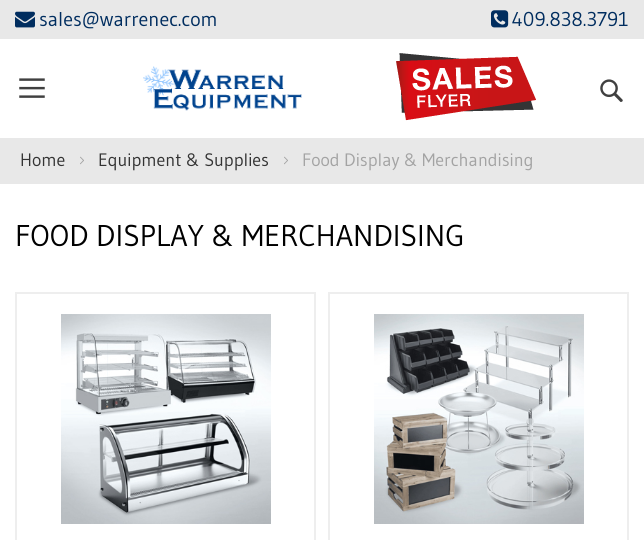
import math
import cairo

surface = cairo.ImageSurface(cairo.FORMAT_RGB24, 644, 540)
ctx = cairo.Context(surface)
options = cairo.FontOptions()
options.set_hint_metrics(cairo.HINT_METRICS_OFF)
options.set_hint_style(cairo.HINT_STYLE_NONE)
ctx.set_font_options(options)
ctx.set_miter_limit(4)


def set_color(code):
    ctx.set_source_rgb(*(v / 255 for v in bytes.fromhex(code[-6:])))


def draw_text(x, y, s, family, size, color, bold=False, italic=False):
    ctx.select_font_face(family, cairo.FONT_SLANT_ITALIC if italic else cairo.FONT_SLANT_NORMAL, cairo.FONT_WEIGHT_BOLD if bold else cairo.FONT_WEIGHT_NORMAL)
    ctx.set_font_size(size)
    set_color(color)
    ctx.move_to(x, y)
    ctx.show_text(s)


def fill_rect(x, y, w, h, color):
    set_color(color)
    ctx.rectangle(x, y, w, h)
    ctx.fill()


def draw_image(path, x, y, w, h):
    ctx.save()
    ctx.set_source_surface(cairo.ImageSurface.create_from_png(path), x, y)
    ctx.rectangle(x, y, w, h)
    ctx.fill()
    ctx.restore()


set_color("#ffffff")
ctx.paint()
fill_rect(0, 0, 644, 39, "#e8e8e8")
draw_image("assets/img1.png", 15, 11, 20, 17)
draw_text(39, 26, "sales@warrenec.com", "Gudea", 20, "#002d5f")
draw_image("assets/img2.png", 491, 10, 18, 18)
draw_text(512, 26, "409.838.3791", "Gudea", 20, "#002d5f")
draw_image("assets/img3.png", 19, 78, 26, 20)
draw_image("assets/img4.png", 143, 66, 159, 45)
draw_image("assets/img5.png", 396, 53, 140, 68)
draw_image("assets/img6.png", 600, 79, 23, 23)
fill_rect(0, 138, 644, 46, "#e8e8e8")
draw_text(20, 166, "Home", "Gudea", 18, "#333333")
draw_image("assets/img7.png", 80, 156, 4, 9)
draw_text(98, 166, "Equipment & Supplies", "Gudea", 18, "#333333")
draw_image("assets/img7.png", 284, 156, 4, 9)
draw_text(302, 166, "Food Display & Merchandising", "Gudea", 18, "#a3a3a3")
draw_text(15, 246, "FOOD DISPLAY & MERCHANDISING", "Gudea", 30, "#000000")
ctx.rectangle(16, 293, 299, 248)
set_color("#eeeeee")
ctx.stroke()
draw_image("assets/img8.png", 61, 314, 210, 210)
ctx.rectangle(329, 293, 299, 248)
ctx.stroke()
draw_image("assets/img9.png", 374, 314, 210, 210)
surface.write_to_png("output.png")
